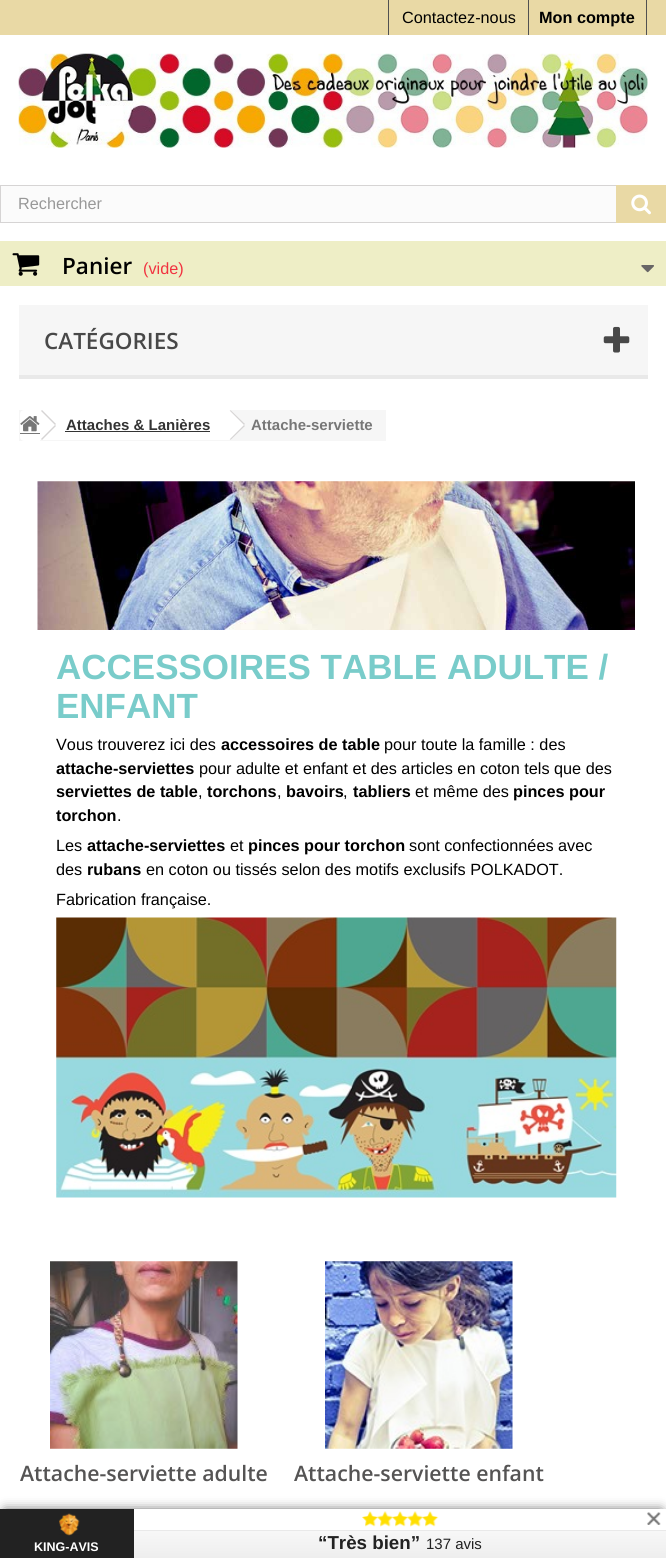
import math
import cairo

surface = cairo.ImageSurface(cairo.FORMAT_RGB24, 666, 1558)
ctx = cairo.Context(surface)
options = cairo.FontOptions()
options.set_hint_metrics(cairo.HINT_METRICS_OFF)
options.set_hint_style(cairo.HINT_STYLE_NONE)
ctx.set_font_options(options)
ctx.set_miter_limit(4)


def set_color(code):
    ctx.set_source_rgb(*(v / 255 for v in bytes.fromhex(code[-6:])))


def draw_text(x, y, s, family, size, color, bold=False, italic=False):
    ctx.select_font_face(family, cairo.FONT_SLANT_ITALIC if italic else cairo.FONT_SLANT_NORMAL, cairo.FONT_WEIGHT_BOLD if bold else cairo.FONT_WEIGHT_NORMAL)
    ctx.set_font_size(size)
    set_color(color)
    ctx.move_to(x, y)
    ctx.show_text(s)


def fill_rect(x, y, w, h, color):
    set_color(color)
    ctx.rectangle(x, y, w, h)
    ctx.fill()


def rounded_rect(x, y, w, h, r):
    ctx.new_sub_path()
    for i, (u, v) in enumerate([(x + w - r, y + h - r), (x + r, y + h - r), (x + r, y + r), (x + w - r, y + r)]):
        ctx.arc(u, v, r, i * math.pi / 2, (i + 1) * math.pi / 2)
    ctx.close_path()


def draw_shadow(x, y, w, h, r, blur, alpha):
    ctx.push_group_with_content(cairo.CONTENT_ALPHA)
    ctx.set_operator(cairo.OPERATOR_SOURCE)
    for i in range(15, -16, -2):
        e = blur * i / 6
        if min(w, h) + 2 * e > 0:
            ctx.set_source_rgba(0, 0, 0, alpha * math.erfc((i - 1) / 8.5) / 2)
            rounded_rect(x - e, y - e, w + 2 * e, h + 2 * e, max(0, min(r + e + blur * .6, min(w, h) / 2 + e)))
            ctx.fill()
    ctx.mask(ctx.pop_group())


def draw_image(path, x, y, w, h):
    ctx.save()
    ctx.set_source_surface(cairo.ImageSurface.create_from_png(path), x, y)
    ctx.rectangle(x, y, w, h)
    ctx.fill()
    ctx.restore()


set_color("#ffffff")
ctx.paint()
fill_rect(0, 0, 666, 35, "#e9d9a5")
fill_rect(388, 0, 1, 35, "#515151")
draw_text(402, 23, "Contactez-nous", "Liberation Sans", 16.25, "#000000")
fill_rect(646, 0, 1, 35, "#515151")
fill_rect(528, 0, 1, 35, "#515151")
draw_text(539, 23, "Mon compte", "Liberation Sans", 16.25, "#000000", bold=True)
draw_image("assets/img1.png", 18, 53, 630, 95)
fill_rect(1, 186, 615, 36, "#fbfbfb")
ctx.rectangle(0.5, 185.5, 665, 37)
set_color("#d6d4d4")
ctx.set_line_width(1)
ctx.stroke()
draw_text(18, 209, "Rechercher", "Liberation Sans", 16.25, "#999999")
fill_rect(616, 185, 50, 38, "#e9d9a5")
draw_image("assets/img2.png", 631, 194, 20, 21)
fill_rect(0, 241, 666, 45, "#eeeec6")
draw_image("assets/img3.png", 12, 253, 28, 23)
draw_text(62, 274, "Panier", "Open Sans SemiBold", 22.5, "#000000")
draw_text(143, 274, "(vide)", "Liberation Sans", 16.25, "#f13340")
draw_image("assets/img4.png", 641, 265, 13, 8)
fill_rect(19, 305, 629, 70, "#f6f6f6")
fill_rect(19, 375, 629, 4, "#e9e9e9")
draw_text(44, 349, "CATÉGORIES", "Open Sans SemiBold", 22.5, "#484848")
draw_image("assets/img5.png", 603, 326, 27, 27)
fill_rect(19, 410, 367, 31, "#f6f6f6")
set_color("#ffffff")
ctx.new_path()
ctx.move_to(24, 410)
ctx.line_to(40, 410)
ctx.line_to(40, 441)
ctx.line_to(24, 441)
ctx.curve_to(22, 441, 20, 439, 20, 437)
ctx.line_to(20, 414)
ctx.curve_to(20, 412, 22, 410, 24, 410)
ctx.close_path()
ctx.fill()
fill_rect(20, 433, 20, 1, "#777777")
draw_image("assets/img6.png", 20, 416, 20, 16)
fill_rect(40, 410, 189, 30, "#ffffff")
set_color("#d6d4d4")
ctx.new_path()
ctx.move_to(42, 410)
ctx.line_to(56, 424)
ctx.line_to(55, 425)
ctx.line_to(41, 411)
ctx.close_path()
ctx.move_to(55, 425)
ctx.line_to(56, 426)
ctx.line_to(42, 440)
ctx.line_to(41, 439)
ctx.close_path()
ctx.fill()
draw_text(66, 430, "Attaches & Lanières", "Liberation Sans", 15, "#333333", bold=True)
fill_rect(65, 431, 145, 1, "#333333")
set_color("#ffffff")
ctx.new_path()
ctx.move_to(231.5, 411)
ctx.line_to(244, 423.5)
ctx.curve_to(245, 424, 245, 426, 244, 427)
ctx.line_to(231.5, 439)
ctx.curve_to(230.5, 440, 229, 440, 228, 439)
ctx.line_to(215.5, 427)
ctx.curve_to(214.5, 426, 214.5, 424, 215.5, 423.5)
ctx.line_to(228, 411)
ctx.curve_to(229, 410, 230.5, 410, 231.5, 411)
ctx.close_path()
ctx.fill()
set_color("#d6d4d4")
ctx.new_path()
ctx.move_to(230.5, 410)
ctx.line_to(245, 424)
ctx.line_to(244, 425)
ctx.line_to(230, 411)
ctx.close_path()
ctx.move_to(244, 425)
ctx.line_to(245, 426)
ctx.line_to(230.5, 440)
ctx.line_to(230, 439)
ctx.close_path()
ctx.fill()
draw_text(251, 430, "Attache-serviette", "Liberation Sans", 15, "#777777", bold=True)
draw_image("assets/img7.png", 37, 481, 598, 149)
draw_text(56, 679, "ACCESSOIRES TABLE ADULTE /", "Liberation Sans", 35, "#79ccca", bold=True)
draw_text(56, 718, "ENFANT", "Liberation Sans", 35, "#79ccca", bold=True)
draw_text(56, 750, "Vous trouverez ici des", "Liberation Sans", 16.25, "#000000")
draw_text(221, 750, "accessoires de table", "Liberation Sans", 16.25, "#000000", bold=True)
draw_text(384, 750, "pour toute la famille : des", "Liberation Sans", 16.25, "#000000")
draw_text(56, 774, "attache-serviettes", "Liberation Sans", 16.25, "#000000", bold=True)
draw_text(199, 774, "pour adulte et enfant et des articles en coton tels que des", "Liberation Sans", 16.25, "#000000")
draw_text(56, 797, "serviettes de table", "Liberation Sans", 16.25, "#000000", bold=True)
draw_text(198, 797, ",", "Liberation Sans", 16.25, "#000000")
draw_text(207, 797, "torchons", "Liberation Sans", 16.25, "#000000", bold=True)
draw_text(277, 797, ",", "Liberation Sans", 16.25, "#000000")
draw_text(286, 797, "bavoirs", "Liberation Sans", 16.25, "#000000", bold=True)
draw_text(343, 797, ",", "Liberation Sans", 16.25, "#000000")
draw_text(353, 797, "tabliers", "Liberation Sans", 16.25, "#000000", bold=True)
draw_text(415, 797, "et même des", "Liberation Sans", 16.25, "#000000")
draw_text(513, 797, "pinces pour", "Liberation Sans", 16.25, "#000000", bold=True)
draw_text(56, 821, "torchon", "Liberation Sans", 16.25, "#000000", bold=True)
draw_text(117, 821, ".", "Liberation Sans", 16.25, "#000000")
draw_text(56, 851, "Les", "Liberation Sans", 16.25, "#000000")
draw_text(87, 851, "attache-serviettes", "Liberation Sans", 16.25, "#000000", bold=True)
draw_text(230, 851, "et", "Liberation Sans", 16.25, "#000000")
draw_text(248, 851, "pinces pour torchon", "Liberation Sans", 16.25, "#000000", bold=True)
draw_text(409, 851, "sont confectionnées avec", "Liberation Sans", 16.25, "#000000")
draw_text(56, 875, "des", "Liberation Sans", 16.25, "#000000")
draw_text(87, 875, "rubans", "Liberation Sans", 16.25, "#000000", bold=True)
draw_text(146, 875, "en coton ou tissés selon des motifs exclusifs POLKADOT.", "Liberation Sans", 16.25, "#000000")
draw_text(56, 905, "Fabrication française.", "Liberation Sans", 16.25, "#000000")
draw_image("assets/img8.png", 56, 917, 561, 281)
draw_image("assets/img9.png", 50, 1261, 188, 188)
draw_text(20, 1481, "Attache-serviette adulte", "Open Sans SemiBold", 21.25, "#555454")
draw_image("assets/img10.png", 325, 1261, 188, 188)
draw_text(294, 1481, "Attache-serviette enfant", "Open Sans SemiBold", 21.25, "#555454")
set_color("#000000")
draw_shadow(5, 1511, 656, 40, 0, 6, 0.75)
fill_rect(0, 1509, 134, 49, "#222222")
draw_image("assets/img11.png", 59, 1513, 21, 23)
draw_text(34, 1551, "KING-AVIS", "Liberation Sans", 12.5, "#ffffff", bold=True)
gradient = cairo.LinearGradient(400, 1509, 400, 1558)
gradient.add_color_stop_rgba(0, 1, 1, 1, 1)
gradient.add_color_stop_rgba(1, 0.933, 0.933, 0.933, 1)
ctx.set_source(gradient)
ctx.rectangle(134, 1531, 532, 27)
ctx.fill()
fill_rect(134, 1509, 532, 21, "#ffffff")
fill_rect(134, 1530, 532, 1, "#e9e9e9")
draw_image("assets/img12.png", 362, 1511, 17, 16)
draw_image("assets/img13.png", 377, 1511, 17, 16)
draw_image("assets/img14.png", 392, 1511, 17, 16)
draw_image("assets/img13.png", 407, 1511, 17, 16)
draw_image("assets/img15.png", 422, 1511, 17, 16)
draw_image("assets/img16.png", 647, 1512, 14, 13)
draw_text(318, 1549, "“Très bien”", "Liberation Sans", 18.75, "#222222", bold=True)
draw_text(426, 1549, "137 avis", "Liberation Sans", 15, "#222222")
surface.write_to_png("output.png")
